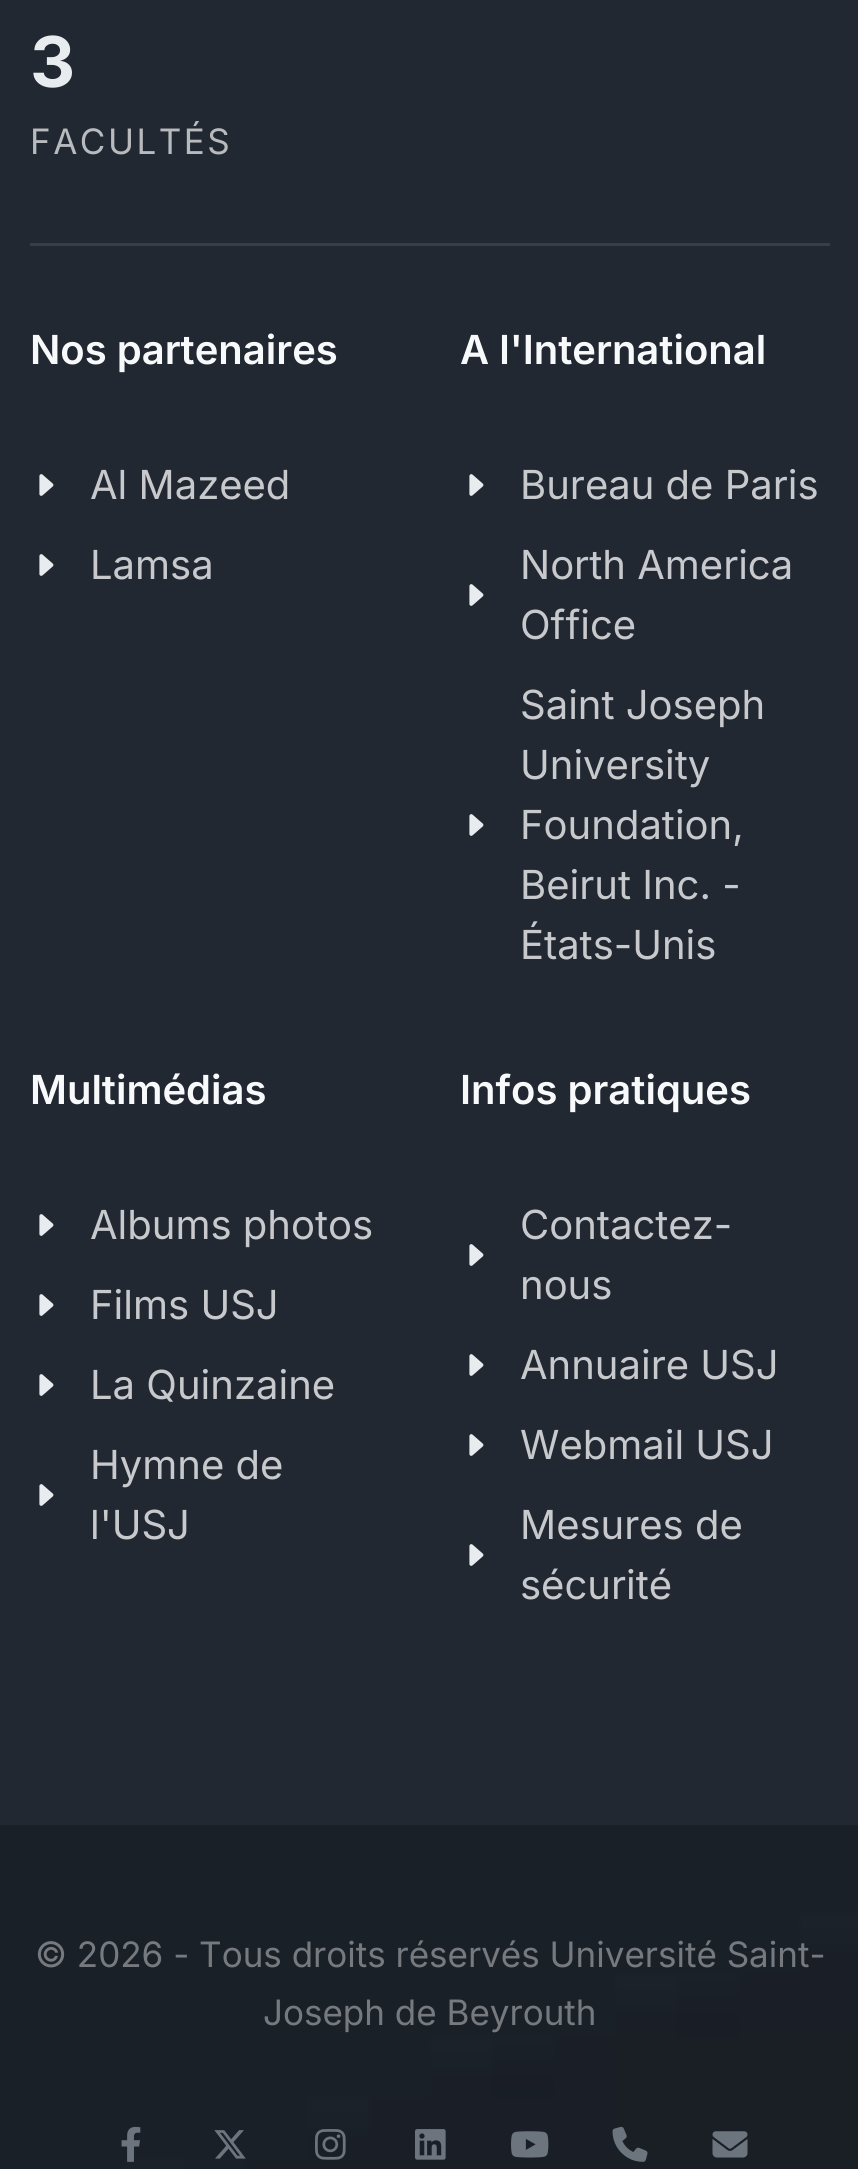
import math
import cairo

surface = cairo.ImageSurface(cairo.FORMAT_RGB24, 858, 2169)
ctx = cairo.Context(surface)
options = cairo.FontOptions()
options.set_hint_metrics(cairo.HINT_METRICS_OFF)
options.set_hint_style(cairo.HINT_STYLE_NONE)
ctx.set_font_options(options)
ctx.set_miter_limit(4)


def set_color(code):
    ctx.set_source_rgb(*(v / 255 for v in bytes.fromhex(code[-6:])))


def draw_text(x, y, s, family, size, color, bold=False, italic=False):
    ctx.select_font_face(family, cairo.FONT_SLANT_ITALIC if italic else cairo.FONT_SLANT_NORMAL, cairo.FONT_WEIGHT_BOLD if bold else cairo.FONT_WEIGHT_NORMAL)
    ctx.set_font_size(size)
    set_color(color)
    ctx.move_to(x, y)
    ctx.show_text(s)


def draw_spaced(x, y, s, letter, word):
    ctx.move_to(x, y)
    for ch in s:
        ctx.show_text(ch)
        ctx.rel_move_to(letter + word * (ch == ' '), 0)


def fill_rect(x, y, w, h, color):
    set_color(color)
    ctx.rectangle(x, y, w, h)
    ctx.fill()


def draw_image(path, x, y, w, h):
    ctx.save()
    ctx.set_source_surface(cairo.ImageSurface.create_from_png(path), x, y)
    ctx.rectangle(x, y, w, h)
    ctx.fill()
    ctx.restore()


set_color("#ffffff")
ctx.paint()
draw_image("assets/img1.png", 0, 0, 858, 2169)
draw_text(30, 87, "3", "Inter", 70, "#e9ecef", bold=True)
ctx.select_font_face("Inter")
ctx.set_font_size(35)
set_color("#b8babe")
draw_spaced(30, 154, "FACULTÉS", 2.5, 0)
fill_rect(30, 243, 800, 3, "#373e47")
draw_text(30, 364, "Nos partenaires", "Inter SemiBold", 40, "#f8f9fa")
draw_image("assets/img2.png", 39, 474, 15, 22)
draw_text(90, 499, "Al Mazeed", "Inter", 40, "#c8c9cc")
draw_image("assets/img2.png", 39, 554, 15, 22)
draw_text(90, 579, "Lamsa", "Inter", 40, "#c8c9cc")
draw_text(460, 364, "A l'International", "Inter SemiBold", 40, "#f8f9fa")
draw_image("assets/img2.png", 469, 474, 15, 22)
draw_text(520, 499, "Bureau de Paris", "Inter", 40, "#c8c9cc")
draw_image("assets/img2.png", 469, 584, 15, 22)
draw_text(520, 579, "North America", "Inter", 40, "#c8c9cc")
draw_text(520, 639, "Office", "Inter", 40, "#c8c9cc")
draw_image("assets/img2.png", 469, 814, 15, 22)
draw_text(520, 719, "Saint Joseph", "Inter", 40, "#c8c9cc")
draw_text(520, 779, "University", "Inter", 40, "#c8c9cc")
draw_text(520, 839, "Foundation,", "Inter", 40, "#c8c9cc")
draw_text(520, 899, "Beirut Inc. -", "Inter", 40, "#c8c9cc")
draw_text(520, 959, "États-Unis", "Inter", 40, "#c8c9cc")
draw_text(30, 1104, "Multimédias", "Inter SemiBold", 40, "#f8f9fa")
draw_image("assets/img2.png", 39, 1214, 15, 22)
draw_text(90, 1239, "Albums photos", "Inter", 40, "#c8c9cc")
draw_image("assets/img2.png", 39, 1294, 15, 22)
draw_text(90, 1319, "Films USJ", "Inter", 40, "#c8c9cc")
draw_image("assets/img2.png", 39, 1374, 15, 22)
draw_text(90, 1399, "La Quinzaine", "Inter", 40, "#c8c9cc")
draw_image("assets/img2.png", 39, 1484, 15, 22)
draw_text(90, 1479, "Hymne de", "Inter", 40, "#c8c9cc")
draw_text(90, 1539, "l'USJ", "Inter", 40, "#c8c9cc")
draw_text(460, 1104, "Infos pratiques", "Inter SemiBold", 40, "#f8f9fa")
draw_image("assets/img2.png", 469, 1244, 15, 22)
draw_text(520, 1239, "Contactez-", "Inter", 40, "#c8c9cc")
draw_text(520, 1299, "nous", "Inter", 40, "#c8c9cc")
draw_image("assets/img2.png", 469, 1354, 15, 22)
draw_text(520, 1379, "Annuaire USJ", "Inter", 40, "#c8c9cc")
draw_image("assets/img2.png", 469, 1434, 15, 22)
draw_text(520, 1459, "Webmail USJ", "Inter", 40, "#c8c9cc")
draw_image("assets/img2.png", 469, 1544, 15, 22)
draw_text(520, 1539, "Mesures de", "Inter", 40, "#c8c9cc")
draw_text(520, 1599, "sécurité", "Inter", 40, "#c8c9cc")
ctx.set_source_rgba(0, 0, 0, 0.2)
ctx.rectangle(0, 1825, 858, 344)
ctx.fill()
draw_text(35, 1967, "© 2026 - Tous droits réservés Université Saint-", "Inter", 35, "#76797e")
draw_text(263, 2025, "Joseph de Beyrouth", "Inter", 35, "#76797e")
draw_image("assets/img3.png", 121, 2126, 20, 36)
draw_image("assets/img4.png", 214, 2130, 32, 29)
draw_image("assets/img5.png", 315, 2129, 31, 31)
draw_image("assets/img6.png", 415, 2129, 31, 31)
draw_image("assets/img7.png", 511, 2131, 38, 27)
draw_image("assets/img8.png", 612, 2126, 36, 36)
draw_image("assets/img9.png", 712, 2131, 36, 27)
surface.write_to_png("output.png")
